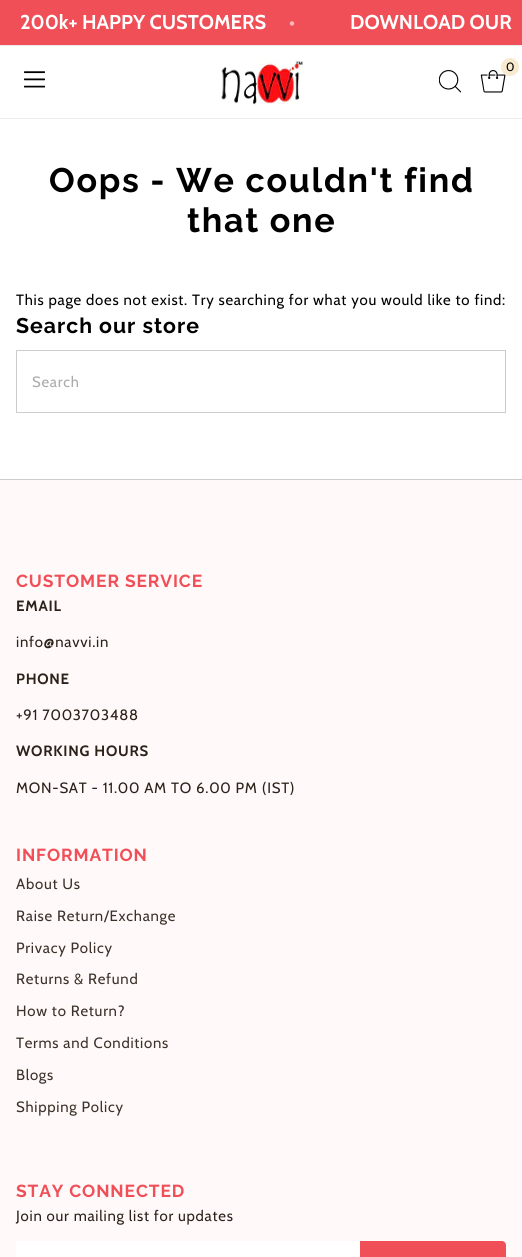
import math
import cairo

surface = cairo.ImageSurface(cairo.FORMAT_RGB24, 522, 1257)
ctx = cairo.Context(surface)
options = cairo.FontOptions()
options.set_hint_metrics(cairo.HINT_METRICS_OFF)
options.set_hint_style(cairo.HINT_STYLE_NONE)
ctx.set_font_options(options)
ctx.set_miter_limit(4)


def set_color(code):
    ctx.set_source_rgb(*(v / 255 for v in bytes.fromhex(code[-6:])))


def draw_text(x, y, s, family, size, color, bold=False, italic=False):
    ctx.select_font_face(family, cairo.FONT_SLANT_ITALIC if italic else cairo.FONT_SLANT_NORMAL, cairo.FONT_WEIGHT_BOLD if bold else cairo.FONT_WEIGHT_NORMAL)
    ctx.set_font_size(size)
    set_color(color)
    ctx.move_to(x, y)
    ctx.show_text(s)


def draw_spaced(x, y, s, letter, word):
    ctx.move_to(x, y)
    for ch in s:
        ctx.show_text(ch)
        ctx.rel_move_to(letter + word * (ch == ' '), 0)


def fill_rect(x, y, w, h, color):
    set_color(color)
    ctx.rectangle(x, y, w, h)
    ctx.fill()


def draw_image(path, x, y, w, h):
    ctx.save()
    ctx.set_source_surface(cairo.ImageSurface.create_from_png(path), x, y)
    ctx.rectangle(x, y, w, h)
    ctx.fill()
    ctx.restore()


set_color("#ffffff")
ctx.paint()
fill_rect(0, 0, 522, 45, "#f14f57")
draw_text(20, 29, "200k+ HAPPY CUSTOMERS", "Cabin", 20, "#ffffff", bold=True)
draw_text(289, 29, "•", "Cabin", 20, "#f9b9bc", bold=True)
draw_text(350, 29, "DOWNLOAD OUR", "Cabin", 20, "#ffffff", bold=True)
fill_rect(0, 45, 522, 1, "#ececec")
fill_rect(0, 118, 522, 1, "#ececec")
draw_image("assets/img1.png", 221, 59, 82, 46)
draw_image("assets/img2.png", 480, 70, 26, 23)
set_color("#f8eace")
ctx.arc(510, 67, 9, 0, 2 * math.pi)
ctx.fill()
ctx.select_font_face("Cabin")
ctx.set_font_size(12)
set_color("#000000")
draw_spaced(506, 71, "0", 0.75, 0)
draw_image("assets/img3.png", 439, 70, 22, 23)
draw_image("assets/img4.png", 24, 71, 21, 17)
ctx.select_font_face("Raleway", cairo.FONT_SLANT_NORMAL, cairo.FONT_WEIGHT_BOLD)
ctx.set_font_size(34)
draw_spaced(49, 192, "Oops - We couldn't find", 1.7, 0)
draw_spaced(187, 232, "that one", 1.7, 0)
ctx.select_font_face("Cabin")
ctx.set_font_size(14.9)
draw_spaced(16, 305, "This page does not exist. Try searching for what you would like to find:", 0.75, 0)
ctx.select_font_face("Raleway", cairo.FONT_SLANT_NORMAL, cairo.FONT_WEIGHT_BOLD)
ctx.set_font_size(21.25)
draw_spaced(16, 333, "Search our store", 1, 0)
ctx.rectangle(16.5, 350.5, 489, 62)
set_color("#cccccc")
ctx.set_line_width(1)
ctx.stroke()
ctx.select_font_face("Cabin")
ctx.set_font_size(14.9)
set_color("#aaaaaa")
draw_spaced(32, 387, "Search", 0.75, 0)
fill_rect(0, 480, 522, 777, "#fff9fa")
fill_rect(0, 479, 522, 1, "#cccccc")
ctx.select_font_face("Raleway", cairo.FONT_SLANT_NORMAL, cairo.FONT_WEIGHT_BOLD)
ctx.set_font_size(17.4)
set_color("#f14f57")
draw_spaced(16, 587, "CUSTOMER SERVICE", 0.9, 0)
ctx.select_font_face("Cabin", cairo.FONT_SLANT_NORMAL, cairo.FONT_WEIGHT_BOLD)
ctx.set_font_size(14.9)
set_color("#2c221a")
draw_spaced(16, 611, "EMAIL", 0.75, 0)
ctx.select_font_face("Cabin")
draw_spaced(16, 647, "info@navvi.in", 0.75, 0)
ctx.select_font_face("Cabin", cairo.FONT_SLANT_NORMAL, cairo.FONT_WEIGHT_BOLD)
draw_spaced(16, 684, "PHONE", 0.75, 0)
ctx.select_font_face("Cabin")
draw_spaced(16, 720, "+91 7003703488", 0.75, 0)
ctx.select_font_face("Cabin", cairo.FONT_SLANT_NORMAL, cairo.FONT_WEIGHT_BOLD)
draw_spaced(16, 756, "WORKING HOURS", 0.75, 0)
ctx.select_font_face("Cabin")
draw_spaced(16, 793, "MON-SAT - 11.00 AM TO 6.00 PM (IST)", 0.75, 0)
ctx.select_font_face("Raleway", cairo.FONT_SLANT_NORMAL, cairo.FONT_WEIGHT_BOLD)
ctx.set_font_size(17.4)
set_color("#f14f57")
draw_spaced(16, 861, "INFORMATION", 0.9, 0)
ctx.select_font_face("Cabin")
ctx.set_font_size(14.9)
set_color("#3c322a")
draw_spaced(16, 889, "About Us", 0.75, 0)
draw_spaced(16, 921, "Raise Return/Exchange", 0.75, 0)
draw_spaced(16, 953, "Privacy Policy", 0.75, 0)
draw_spaced(16, 984, "Returns & Refund", 0.75, 0)
draw_spaced(16, 1016, "How to Return?", 0.75, 0)
draw_spaced(16, 1048, "Terms and Conditions", 0.75, 0)
draw_spaced(16, 1080, "Blogs", 0.75, 0)
draw_spaced(16, 1112, "Shipping Policy", 0.75, 0)
ctx.select_font_face("Raleway", cairo.FONT_SLANT_NORMAL, cairo.FONT_WEIGHT_BOLD)
ctx.set_font_size(17.4)
set_color("#f14f57")
draw_spaced(16, 1197, "STAY CONNECTED", 0.9, 0)
ctx.select_font_face("Cabin")
ctx.set_font_size(14.9)
set_color("#2c221a")
draw_spaced(16, 1221, "Join our mailing list for updates", 0.75, 0)
fill_rect(16, 1241, 344, 16, "#ffffff")
set_color("#f14f57")
ctx.new_path()
ctx.move_to(360, 1241)
ctx.line_to(502, 1241)
ctx.curve_to(504, 1241, 506, 1243, 506, 1245)
ctx.line_to(506, 1257)
ctx.curve_to(506, 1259, 504, 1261, 502, 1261)
ctx.line_to(360, 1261)
ctx.close_path()
ctx.fill()
surface.write_to_png("output.png")
